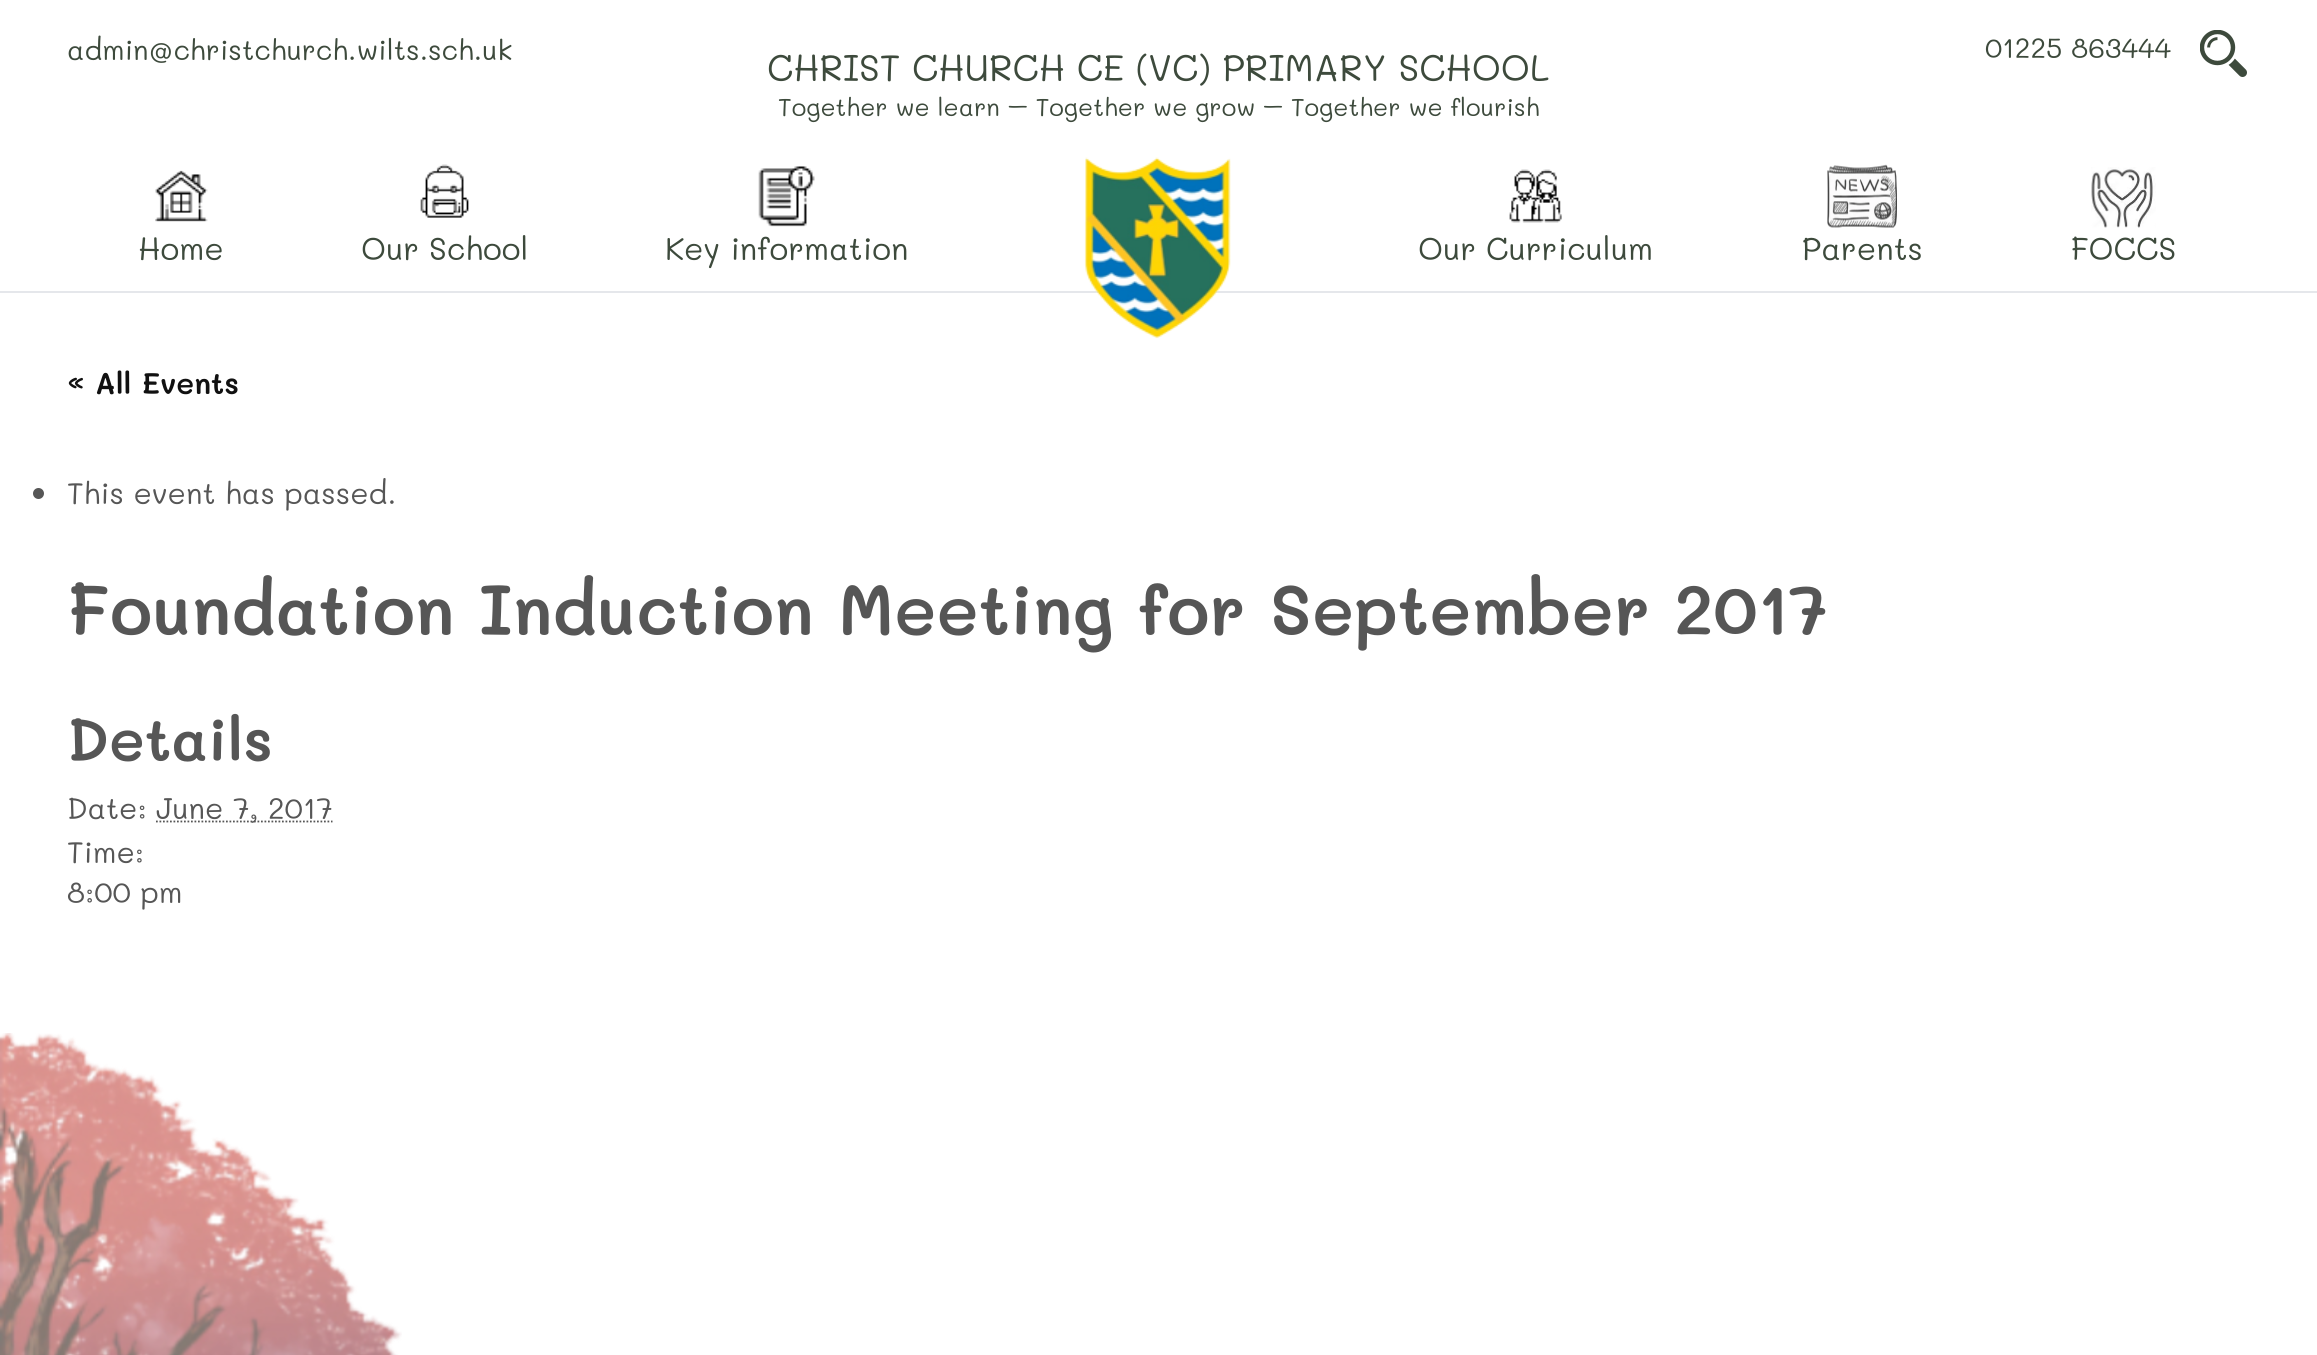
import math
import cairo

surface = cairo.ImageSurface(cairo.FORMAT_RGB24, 2317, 1355)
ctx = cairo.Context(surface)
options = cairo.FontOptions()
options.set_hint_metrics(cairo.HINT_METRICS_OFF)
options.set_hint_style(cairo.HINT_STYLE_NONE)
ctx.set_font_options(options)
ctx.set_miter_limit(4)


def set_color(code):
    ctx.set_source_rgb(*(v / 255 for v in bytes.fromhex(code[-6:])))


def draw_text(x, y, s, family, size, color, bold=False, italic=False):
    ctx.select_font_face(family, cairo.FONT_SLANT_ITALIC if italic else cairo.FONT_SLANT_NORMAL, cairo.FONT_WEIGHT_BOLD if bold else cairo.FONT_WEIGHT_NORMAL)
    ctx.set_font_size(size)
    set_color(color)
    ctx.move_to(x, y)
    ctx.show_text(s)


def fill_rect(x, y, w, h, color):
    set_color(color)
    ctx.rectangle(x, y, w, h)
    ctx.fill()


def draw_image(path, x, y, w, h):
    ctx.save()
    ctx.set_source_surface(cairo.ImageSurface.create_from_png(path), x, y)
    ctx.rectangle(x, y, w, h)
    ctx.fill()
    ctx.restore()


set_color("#ffffff")
ctx.paint()
fill_rect(0, 291, 2317, 2, "#e5e7eb")
draw_text(67, 60, "admin@christchurch.wilts.sch.uk", "Mali", 28, "#3d4a3c")
draw_text(1985, 58, "01225 863444", "Mali", 28, "#3d4a3c")
draw_image("assets/img1.png", 2200, 30, 47, 47)
draw_text(767, 81, "CHRIST CHURCH CE (VC) PRIMARY SCHOOL", "Mali", 36.75, "#3d4a3c")
draw_text(778, 116, "Together we learn – Together we grow – Together we flourish", "Mali", 24.5, "#3d4a3c")
draw_image("assets/img2.png", 155, 170, 53, 52)
draw_text(138, 260, "Home", "Mali", 31.5, "#3d4a3c")
draw_image("assets/img3.png", 420, 164, 49, 54)
draw_text(361, 260, "Our School", "Mali", 31.5, "#3d4a3c")
draw_image("assets/img4.png", 758, 166, 57, 61)
draw_text(665, 260, "Key information", "Mali", 31.5, "#3d4a3c")
draw_image("assets/img5.png", 1084, 157, 147, 182)
draw_image("assets/img6.png", 1509, 169, 53, 54)
draw_text(1418, 260, "Our Curriculum", "Mali", 31.5, "#3d4a3c")
draw_image("assets/img7.png", 1827, 164, 70, 64)
draw_text(1802, 260, "Parents", "Mali", 31.5, "#3d4a3c")
draw_image("assets/img8.png", 2091, 167, 65, 61)
draw_text(2071, 260, "FOCCS", "Mali", 31.5, "#3d4a3c")
draw_text(67, 394, "« All Events", "Mali SemiBold", 29.75, "#111111")
set_color("#565656")
ctx.new_path()
ctx.arc(38.5, 493.5, 5.5, 0, 2 * math.pi)
ctx.fill()
draw_text(67, 504, "This event has passed.", "Mali", 29.75, "#565656")
draw_text(67, 635, "Foundation Induction Meeting for September 2017", "Mali SemiBold", 70, "#565656")
draw_text(67, 761, "Details", "Mali SemiBold", 59.5, "#565656")
draw_text(67, 819, "Date:", "Mali", 29.75, "#565656")
ctx.new_path()
ctx.move_to(156, 821.5)
ctx.line_to(332.5, 821.5)
ctx.set_line_width(1.8)
ctx.set_dash([1.75, 1.75])
ctx.stroke()
draw_text(156, 819, "June 7, 2017", "Mali", 29.75, "#565656")
draw_text(67, 863, "Time:", "Mali", 29.75, "#565656")
draw_text(67, 903, "8:00 pm", "Mali", 29.75, "#565656")
draw_image("assets/img9.png", 0, 1033, 402, 322)
surface.write_to_png("output.png")
